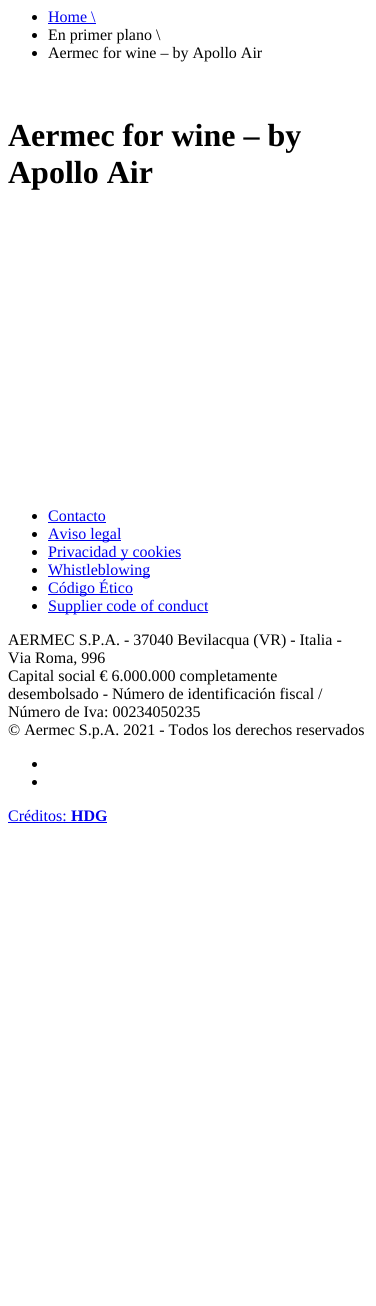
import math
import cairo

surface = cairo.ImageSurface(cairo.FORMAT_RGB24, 376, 1306)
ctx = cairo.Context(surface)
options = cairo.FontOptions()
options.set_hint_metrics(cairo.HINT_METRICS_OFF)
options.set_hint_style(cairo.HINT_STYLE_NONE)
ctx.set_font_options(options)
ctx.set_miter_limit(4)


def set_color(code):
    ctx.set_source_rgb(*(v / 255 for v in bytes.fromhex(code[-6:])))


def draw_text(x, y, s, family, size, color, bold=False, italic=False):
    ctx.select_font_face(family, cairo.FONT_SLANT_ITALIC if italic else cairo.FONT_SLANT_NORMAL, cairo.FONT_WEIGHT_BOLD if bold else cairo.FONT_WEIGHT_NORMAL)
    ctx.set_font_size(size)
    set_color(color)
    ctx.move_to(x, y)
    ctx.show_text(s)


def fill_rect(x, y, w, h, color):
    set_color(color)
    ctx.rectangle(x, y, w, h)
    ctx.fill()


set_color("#ffffff")
ctx.paint()
set_color("#000000")
ctx.arc(34.5, 17.5, 2.5, 0, 2 * math.pi)
ctx.fill()
draw_text(48, 22, "Home \\", "Liberation Serif", 16, "#0000ee")
fill_rect(48, 23, 48, 1, "#0000ee")
set_color("#000000")
ctx.new_path()
ctx.arc(34.5, 35.5, 2.5, 0, 2 * math.pi)
ctx.fill()
draw_text(48, 40, "En primer plano \\", "Liberation Serif", 16, "#000000")
ctx.new_path()
ctx.arc(34.5, 53.5, 2.5, 0, 2 * math.pi)
ctx.fill()
draw_text(48, 58, "Aermec for wine – by Apollo Air", "Liberation Serif", 16, "#000000")
draw_text(8, 146, "Aermec for wine – by", "Liberation Serif", 32, "#000000", bold=True)
draw_text(8, 183, "Apollo Air", "Liberation Serif", 32, "#000000", bold=True)
ctx.new_path()
ctx.arc(34.5, 516.5, 2.5, 0, 2 * math.pi)
ctx.fill()
draw_text(48, 521, "Contacto", "Liberation Serif", 16, "#0000ee")
fill_rect(48, 522, 58, 1, "#0000ee")
set_color("#000000")
ctx.new_path()
ctx.arc(34.5, 534.5, 2.5, 0, 2 * math.pi)
ctx.fill()
fill_rect(48, 540, 73, 1, "#0000ee")
draw_text(48, 539, "Aviso legal", "Liberation Serif", 16, "#0000ee")
set_color("#000000")
ctx.new_path()
ctx.arc(34.5, 552.5, 2.5, 0, 2 * math.pi)
ctx.fill()
fill_rect(48, 558, 133, 1, "#0000ee")
draw_text(48, 557, "Privacidad y cookies", "Liberation Serif", 16, "#0000ee")
set_color("#000000")
ctx.new_path()
ctx.arc(34.5, 570.5, 2.5, 0, 2 * math.pi)
ctx.fill()
fill_rect(48, 576, 102, 1, "#0000ee")
draw_text(48, 575, "Whistleblowing", "Liberation Serif", 16, "#0000ee")
set_color("#000000")
ctx.new_path()
ctx.arc(34.5, 588.5, 2.5, 0, 2 * math.pi)
ctx.fill()
fill_rect(48, 594, 85, 1, "#0000ee")
draw_text(48, 593, "Código Ético", "Liberation Serif", 16, "#0000ee")
set_color("#000000")
ctx.new_path()
ctx.arc(34.5, 606.5, 2.5, 0, 2 * math.pi)
ctx.fill()
fill_rect(48, 612, 160, 1, "#0000ee")
draw_text(48, 611, "Supplier code of conduct", "Liberation Serif", 16, "#0000ee")
draw_text(8, 645, "AERMEC S.P.A. - 37040 Bevilacqua (VR) - Italia -", "Liberation Serif", 16, "#000000")
draw_text(8, 663, "Via Roma, 996", "Liberation Serif", 16, "#000000")
draw_text(8, 681, "Capital social € 6.000.000 completamente", "Liberation Serif", 16, "#000000")
draw_text(8, 699, "desembolsado - Número de identificación fiscal /", "Liberation Serif", 16, "#000000")
draw_text(8, 717, "Número de Iva: 00234050235", "Liberation Serif", 16, "#000000")
draw_text(8, 735, "© Aermec S.p.A. 2021 - Todos los derechos reservados", "Liberation Serif", 16, "#000000")
ctx.new_path()
ctx.arc(34.5, 764.5, 2.5, 0, 2 * math.pi)
ctx.fill()
ctx.arc(34.5, 782.5, 2.5, 0, 2 * math.pi)
ctx.fill()
draw_text(8, 821, "Créditos:", "Liberation Serif", 16, "#0000ee")
draw_text(71, 821, "HDG", "Liberation Serif", 16, "#0000ee", bold=True)
fill_rect(8, 822, 99, 1, "#0000ee")
surface.write_to_png("output.png")
